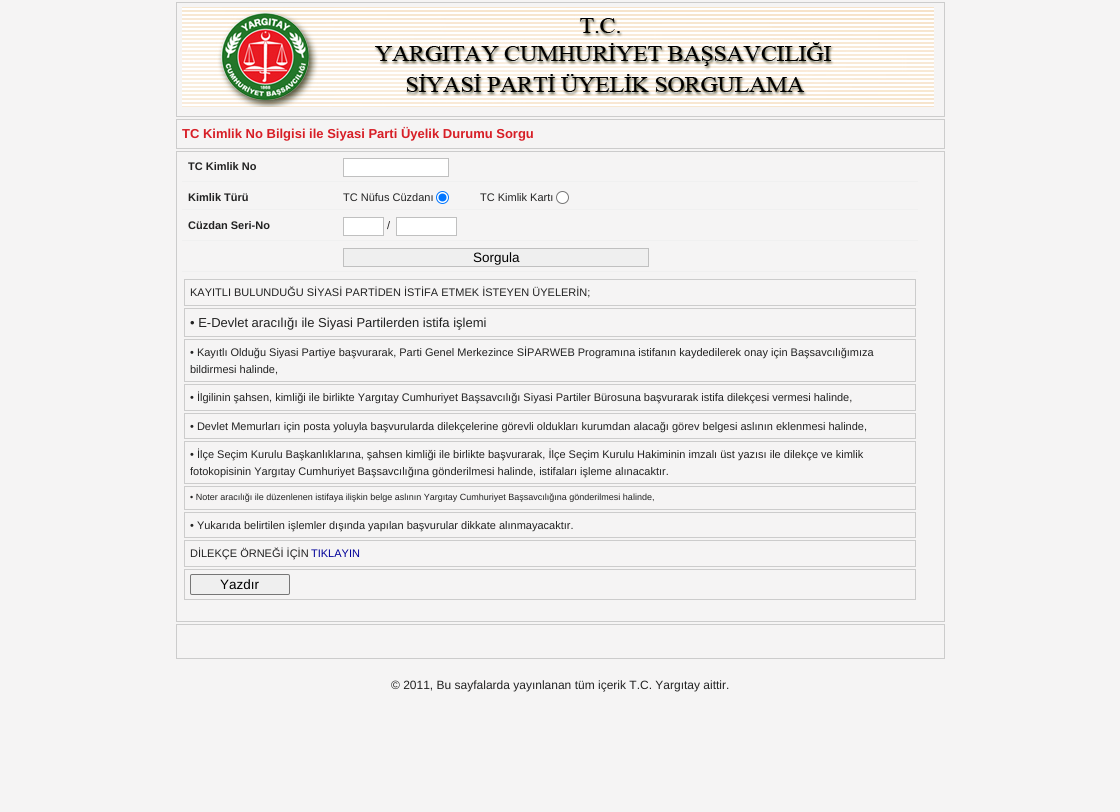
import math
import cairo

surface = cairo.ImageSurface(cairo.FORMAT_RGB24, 1120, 812)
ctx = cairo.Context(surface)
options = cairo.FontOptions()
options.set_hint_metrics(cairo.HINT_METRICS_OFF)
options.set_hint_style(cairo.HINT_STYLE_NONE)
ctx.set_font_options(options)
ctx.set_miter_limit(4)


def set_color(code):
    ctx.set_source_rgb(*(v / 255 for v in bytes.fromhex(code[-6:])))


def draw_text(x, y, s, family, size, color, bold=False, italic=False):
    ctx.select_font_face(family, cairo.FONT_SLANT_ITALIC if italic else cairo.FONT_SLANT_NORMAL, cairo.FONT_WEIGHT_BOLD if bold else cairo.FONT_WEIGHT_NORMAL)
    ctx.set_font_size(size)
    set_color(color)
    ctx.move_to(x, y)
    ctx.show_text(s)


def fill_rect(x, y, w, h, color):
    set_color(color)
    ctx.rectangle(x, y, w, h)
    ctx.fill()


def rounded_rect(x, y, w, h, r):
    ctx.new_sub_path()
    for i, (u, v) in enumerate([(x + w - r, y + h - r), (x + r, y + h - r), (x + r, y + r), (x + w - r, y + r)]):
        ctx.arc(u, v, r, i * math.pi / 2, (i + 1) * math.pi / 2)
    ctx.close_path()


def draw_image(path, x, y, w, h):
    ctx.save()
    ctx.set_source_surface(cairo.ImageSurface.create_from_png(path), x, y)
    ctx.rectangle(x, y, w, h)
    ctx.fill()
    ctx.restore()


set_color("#f5f4f4")
ctx.paint()
ctx.rectangle(176.5, 2.5, 768, 114)
set_color("#cccccc")
ctx.set_line_width(1)
ctx.stroke()
draw_image("assets/img1.png", 182, 7, 752, 100)
ctx.rectangle(176.5, 119.5, 768, 29)
ctx.stroke()
draw_text(182, 138, "TC Kimlik No Bilgisi ile Siyasi Parti Üyelik Durumu Sorgu", "Liberation Sans", 13, "#d71e26", bold=True)
ctx.rectangle(176.5, 151.5, 768, 470)
set_color("#cccccc")
ctx.stroke()
fill_rect(182, 181, 736, 1, "#f0f0f0")
draw_text(188, 170, "TC Kimlik No", "Liberation Sans", 11, "#222222", bold=True)
set_color("#ffffff")
ctx.rectangle(343.5, 158.5, 105, 18)
ctx.fill_preserve()
set_color("#c0c0c0")
ctx.stroke()
fill_rect(182, 209, 736, 1, "#f0f0f0")
draw_text(188, 201, "Kimlik Türü", "Liberation Sans", 11, "#222222", bold=True)
draw_text(343, 201, "TC Nüfus Cüzdanı", "Liberation Sans", 11, "#222222")
set_color("#ffffff")
ctx.new_path()
ctx.arc(442.5, 197.5, 6, 0, 2 * math.pi)
ctx.fill_preserve()
set_color("#0075ff")
ctx.stroke()
ctx.arc(442.5, 197.5, 4, 0, 2 * math.pi)
ctx.fill()
draw_text(480, 201, "TC Kimlik Kartı", "Liberation Sans", 11, "#222222")
set_color("#ffffff")
ctx.new_path()
ctx.arc(562.5, 197.5, 6, 0, 2 * math.pi)
ctx.fill_preserve()
set_color("#767676")
ctx.stroke()
fill_rect(182, 240, 736, 1, "#f0f0f0")
draw_text(188, 229, "Cüzdan Seri-No", "Liberation Sans", 11, "#222222", bold=True)
set_color("#ffffff")
ctx.rectangle(343.5, 217.5, 40, 18)
ctx.fill_preserve()
set_color("#c0c0c0")
ctx.stroke()
draw_text(387, 229, "/", "Liberation Sans", 11, "#222222")
set_color("#ffffff")
ctx.rectangle(396.5, 217.5, 60, 18)
ctx.fill_preserve()
set_color("#c0c0c0")
ctx.stroke()
fill_rect(182, 271, 736, 1, "#f0f0f0")
set_color("#efefef")
ctx.rectangle(343.5, 248.5, 305, 18)
ctx.fill_preserve()
set_color("#c0c0c0")
ctx.stroke()
draw_text(473, 262, "Sorgula", "Liberation Sans", 13.5, "#000000")
ctx.rectangle(184.5, 279.5, 731, 26)
set_color("#cccccc")
ctx.stroke()
draw_text(190, 296, "KAYITLI BULUNDUĞU SİYASİ PARTİDEN İSTİFA ETMEK İSTEYEN ÜYELERİN;", "Liberation Sans", 11, "#222222")
ctx.rectangle(184.5, 308.5, 731, 28)
set_color("#cccccc")
ctx.stroke()
draw_text(190, 327, "• E-Devlet aracılığı ile Siyasi Partilerden istifa işlemi", "Liberation Sans", 13, "#222222")
ctx.rectangle(184.5, 339.5, 731, 42)
set_color("#cccccc")
ctx.stroke()
draw_text(190, 356, "• Kayıtlı Olduğu Siyasi Partiye başvurarak, Parti Genel Merkezince SİPARWEB Programına istifanın kaydedilerek onay için Başsavcılığımıza", "Liberation Sans", 11, "#222222")
draw_text(190, 373, "bildirmesi halinde,", "Liberation Sans", 11, "#222222")
ctx.rectangle(184.5, 384.5, 731, 26)
set_color("#cccccc")
ctx.stroke()
draw_text(190, 401, "• İlgilinin şahsen, kimliği ile birlikte Yargıtay Cumhuriyet Başsavcılığı Siyasi Partiler Bürosuna başvurarak istifa dilekçesi vermesi halinde,", "Liberation Sans", 11, "#222222")
ctx.rectangle(184.5, 413.5, 731, 25)
set_color("#cccccc")
ctx.stroke()
draw_text(190, 430, "• Devlet Memurları için posta yoluyla başvurularda dilekçelerine görevli oldukları kurumdan alacağı görev belgesi aslının eklenmesi halinde,", "Liberation Sans", 11, "#222222")
ctx.rectangle(184.5, 441.5, 731, 42)
set_color("#cccccc")
ctx.stroke()
draw_text(190, 458, "• İlçe Seçim Kurulu Başkanlıklarına, şahsen kimliği ile birlikte başvurarak, İlçe Seçim Kurulu Hakiminin imzalı üst yazısı ile dilekçe ve kimlik", "Liberation Sans", 11, "#222222")
draw_text(190, 475, "fotokopisinin Yargıtay Cumhuriyet Başsavcılığına gönderilmesi halinde, istifaları işleme alınacaktır.", "Liberation Sans", 11, "#222222")
ctx.rectangle(184.5, 486.5, 731, 23)
set_color("#cccccc")
ctx.stroke()
draw_text(190, 500, "• Noter aracılığı ile düzenlenen istifaya ilişkin belge aslının Yargıtay Cumhuriyet Başsavcılığına gönderilmesi halinde,", "Liberation Sans", 9, "#222222")
ctx.rectangle(184.5, 512.5, 731, 25)
set_color("#cccccc")
ctx.stroke()
draw_text(190, 529, "• Yukarıda belirtilen işlemler dışında yapılan başvurular dikkate alınmayacaktır.", "Liberation Sans", 11, "#222222")
ctx.rectangle(184.5, 540.5, 731, 26)
set_color("#cccccc")
ctx.stroke()
draw_text(190, 557, "DİLEKÇE ÖRNEĞİ İÇİN", "Liberation Sans", 11, "#222222")
draw_text(311, 557, "TIKLAYIN", "Liberation Sans", 11, "#000099")
ctx.rectangle(184.5, 569.5, 731, 30)
set_color("#cccccc")
ctx.stroke()
set_color("#efefef")
rounded_rect(190.5, 574.5, 99, 20, 1.5)
ctx.fill_preserve()
set_color("#767676")
ctx.stroke()
draw_text(220, 589, "Yazdır", "Liberation Sans", 13.5, "#000000")
ctx.rectangle(176.5, 624.5, 768, 34)
set_color("#cccccc")
ctx.stroke()
draw_text(391, 689, "© 2011, Bu sayfalarda yayınlanan tüm içerik T.C. Yargıtay aittir.", "Liberation Sans", 12, "#222222")
surface.write_to_png("output.png")
